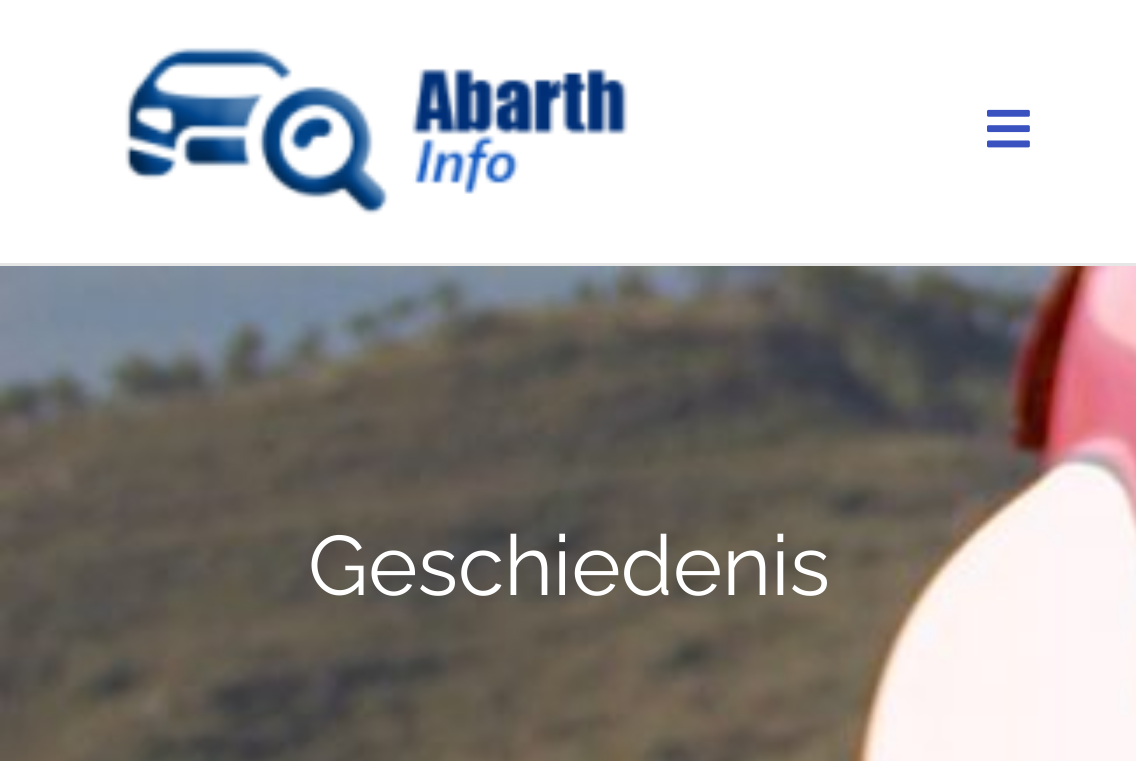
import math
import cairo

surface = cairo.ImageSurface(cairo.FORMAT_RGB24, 1136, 761)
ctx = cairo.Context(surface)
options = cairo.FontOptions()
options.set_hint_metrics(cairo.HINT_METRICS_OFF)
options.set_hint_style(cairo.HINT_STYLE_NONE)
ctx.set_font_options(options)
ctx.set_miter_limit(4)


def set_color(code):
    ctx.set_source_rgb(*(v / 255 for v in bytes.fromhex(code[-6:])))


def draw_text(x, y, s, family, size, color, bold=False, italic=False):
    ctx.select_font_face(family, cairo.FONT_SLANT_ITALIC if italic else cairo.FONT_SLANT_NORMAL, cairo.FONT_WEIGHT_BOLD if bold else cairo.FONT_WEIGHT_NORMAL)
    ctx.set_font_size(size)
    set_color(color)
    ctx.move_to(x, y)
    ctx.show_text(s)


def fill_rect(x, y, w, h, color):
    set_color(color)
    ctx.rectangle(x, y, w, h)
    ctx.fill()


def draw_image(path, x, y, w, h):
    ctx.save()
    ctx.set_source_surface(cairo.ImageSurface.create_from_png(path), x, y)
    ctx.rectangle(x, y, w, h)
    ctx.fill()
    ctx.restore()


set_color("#ffffff")
ctx.paint()
fill_rect(0, 263, 1136, 3, "#e6e6e6")
draw_image("assets/img1.png", 125, 47, 503, 168)
draw_image("assets/img2.png", 987, 109, 43, 39)
draw_image("assets/img3.png", 0, 266, 1136, 495)
draw_text(308, 595, "Geschiedenis", "Raleway", 84, "#ffffff")
surface.write_to_png("output.png")
